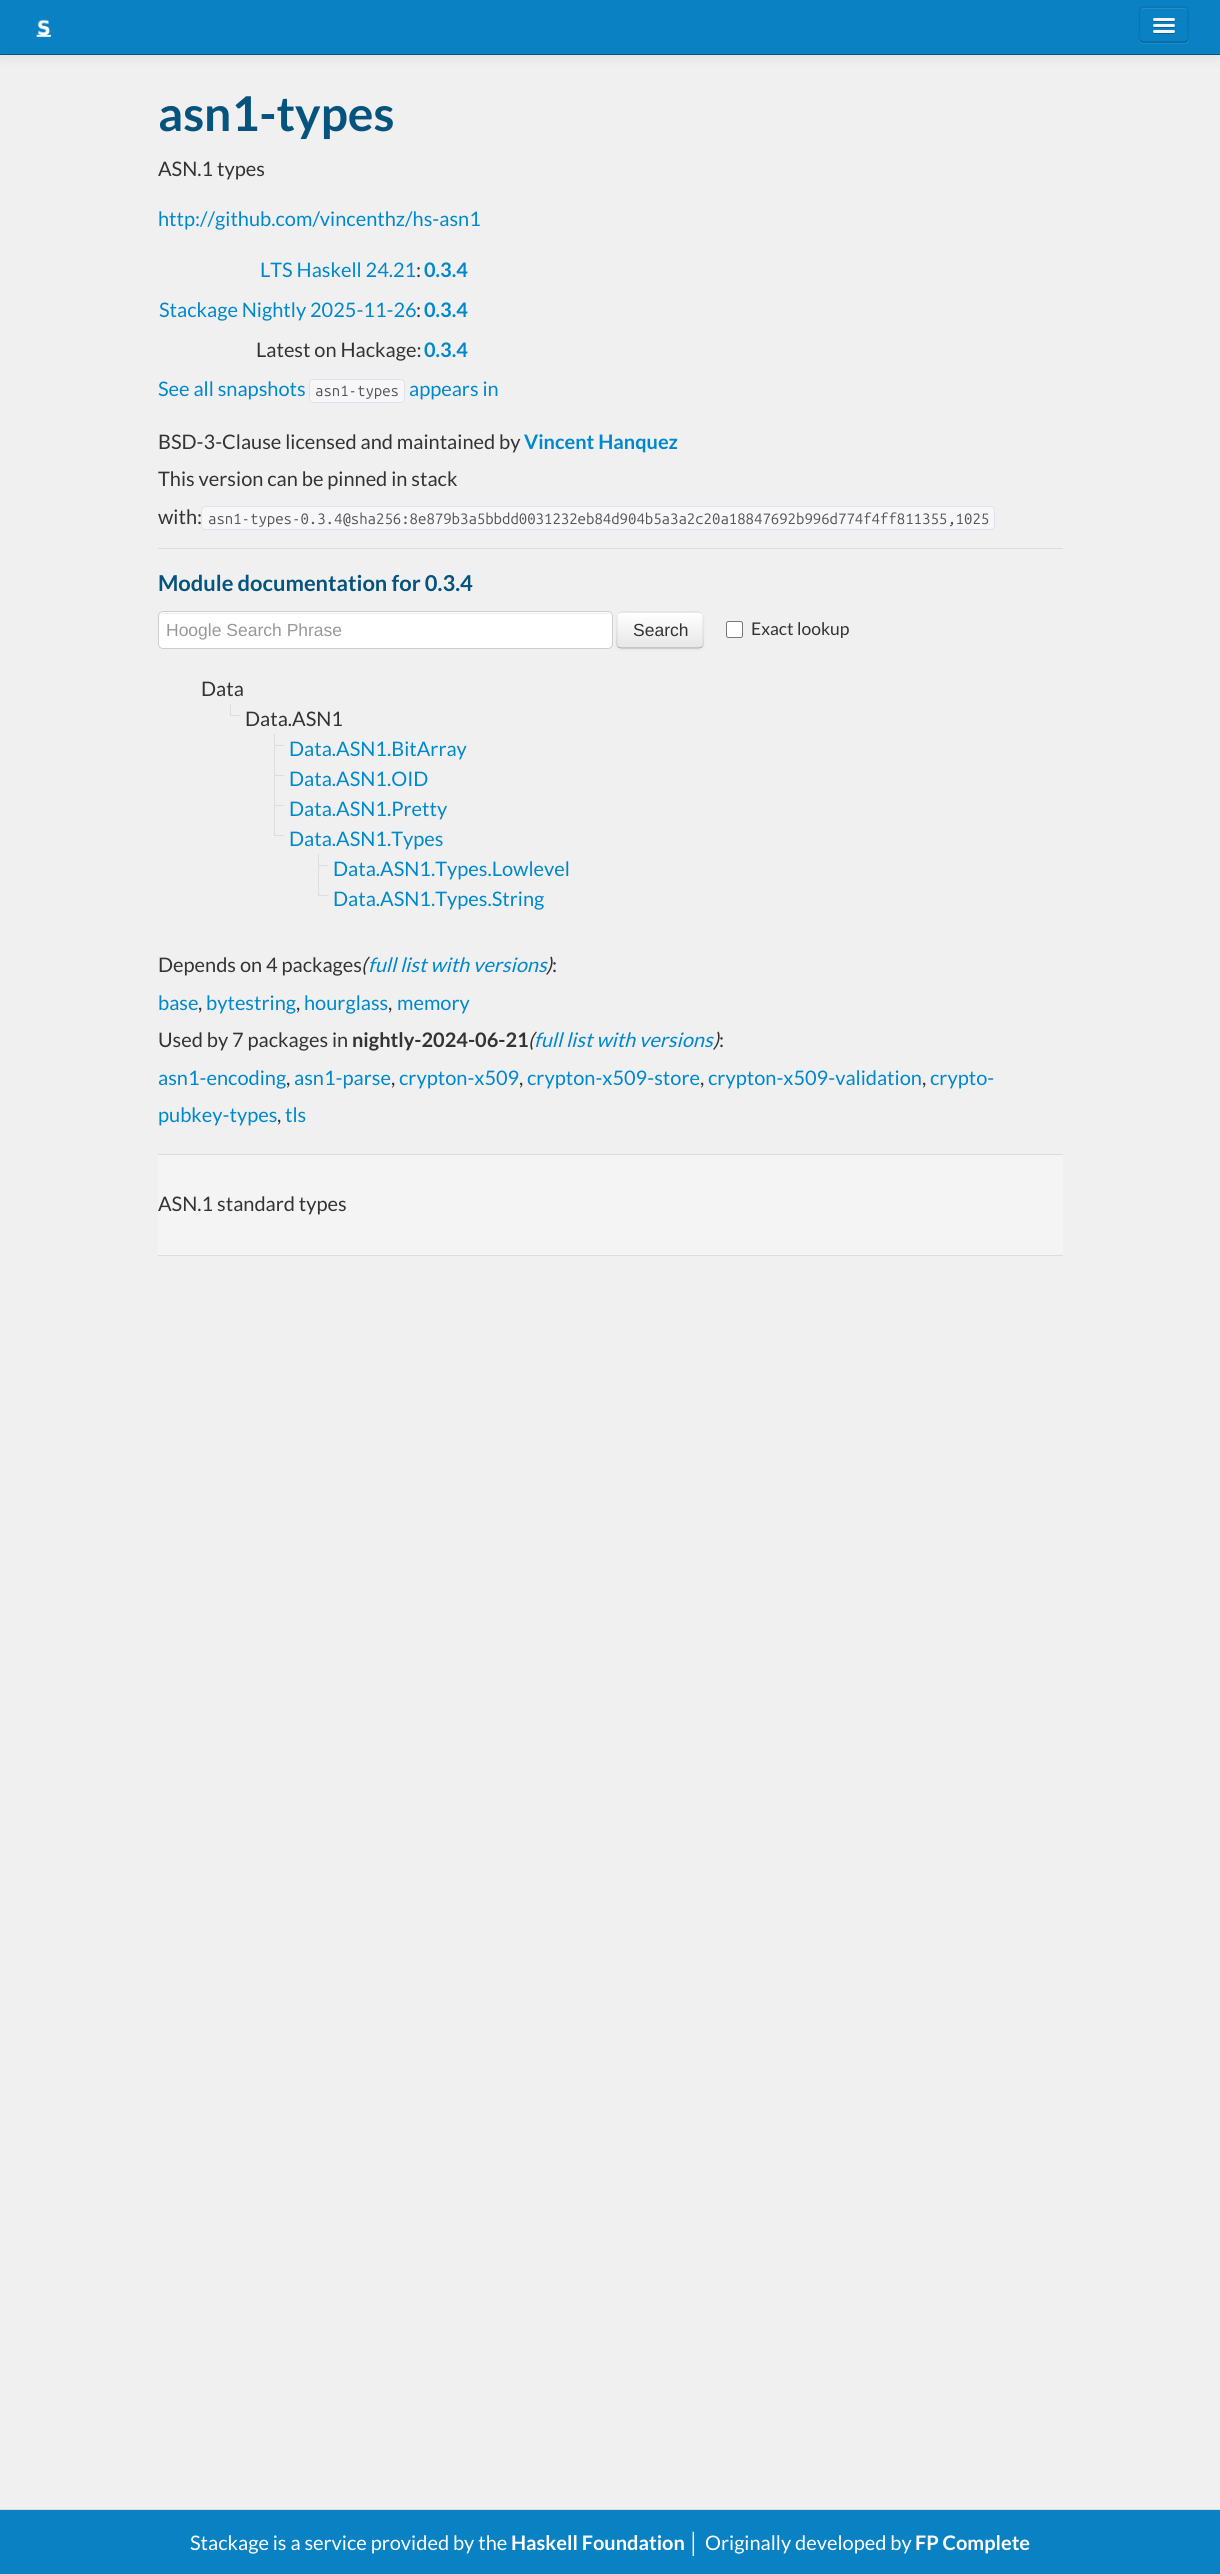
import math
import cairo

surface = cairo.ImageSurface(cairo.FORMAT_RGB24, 1220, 2574)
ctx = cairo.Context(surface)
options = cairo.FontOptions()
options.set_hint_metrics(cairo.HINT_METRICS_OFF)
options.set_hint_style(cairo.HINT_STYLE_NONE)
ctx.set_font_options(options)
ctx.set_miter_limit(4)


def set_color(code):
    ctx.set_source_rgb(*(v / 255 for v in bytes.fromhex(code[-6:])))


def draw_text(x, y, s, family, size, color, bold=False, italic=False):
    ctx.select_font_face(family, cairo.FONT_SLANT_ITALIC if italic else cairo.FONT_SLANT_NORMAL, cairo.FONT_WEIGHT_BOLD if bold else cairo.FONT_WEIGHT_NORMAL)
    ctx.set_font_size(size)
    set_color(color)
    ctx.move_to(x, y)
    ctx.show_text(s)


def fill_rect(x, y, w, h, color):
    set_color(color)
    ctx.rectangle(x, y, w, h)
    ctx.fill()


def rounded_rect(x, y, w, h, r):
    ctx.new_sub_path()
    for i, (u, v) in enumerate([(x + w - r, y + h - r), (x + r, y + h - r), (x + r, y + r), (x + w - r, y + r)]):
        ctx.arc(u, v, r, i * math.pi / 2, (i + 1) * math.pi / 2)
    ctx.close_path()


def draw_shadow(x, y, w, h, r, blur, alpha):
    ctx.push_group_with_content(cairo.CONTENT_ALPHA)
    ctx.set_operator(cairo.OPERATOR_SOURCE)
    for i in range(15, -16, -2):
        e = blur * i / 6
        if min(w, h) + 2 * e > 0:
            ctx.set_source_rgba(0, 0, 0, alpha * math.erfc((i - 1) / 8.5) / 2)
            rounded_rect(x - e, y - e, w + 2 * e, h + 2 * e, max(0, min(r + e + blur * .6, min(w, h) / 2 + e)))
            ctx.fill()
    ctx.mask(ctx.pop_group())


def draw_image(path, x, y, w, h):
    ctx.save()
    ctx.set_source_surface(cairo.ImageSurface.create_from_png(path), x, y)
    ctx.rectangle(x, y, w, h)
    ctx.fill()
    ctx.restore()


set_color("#f0f0f0")
ctx.paint()
set_color("#000000")
draw_shadow(0, 1, 1220, 55, 0, 6, 0.1)
fill_rect(0, 0, 1220, 54, "#0981c3")
fill_rect(0, 54, 1220, 1, "#06537d")
draw_image("assets/img1.png", 36, 19, 15, 19)
set_color("#1b8ac8")
ctx.new_path()
ctx.move_to(1139, 39)
ctx.line_to(1139, 41)
ctx.curve_to(1140, 42, 1141, 44, 1143, 44)
ctx.line_to(1185, 44)
ctx.line_to(1188, 43)
ctx.curve_to(1190, 40, 1189, 30, 1189, 26)
ctx.line_to(1189, 11)
ctx.line_to(1189, 38)
ctx.curve_to(1189, 40, 1187, 42, 1184, 42)
ctx.line_to(1144, 42)
ctx.curve_to(1142, 42, 1140, 41, 1139, 39)
ctx.close_path()
ctx.fill()
set_color("#0981c3")
rounded_rect(1139, 6, 50, 37, 5)
ctx.fill()
set_color("#228ec9")
ctx.new_path()
ctx.move_to(1144, 9)
ctx.line_to(1184, 9)
ctx.curve_to(1186, 9, 1188, 10, 1188, 12)
ctx.curve_to(1188, 10, 1186, 8, 1184, 8)
ctx.line_to(1144, 8)
ctx.curve_to(1142, 8, 1140, 10, 1140, 12)
ctx.curve_to(1140, 10, 1142, 9, 1144, 9)
ctx.close_path()
ctx.fill()
ctx.new_path()
ctx.move_to(1187, 40.5)
ctx.curve_to(1186, 41.5, 1185, 42, 1184, 42)
ctx.line_to(1144, 42)
ctx.curve_to(1142.5, 42, 1141.5, 41.5, 1140.5, 40.5)
set_color("#076192")
ctx.set_line_width(1.2)
ctx.stroke()
ctx.new_path()
ctx.move_to(1140.5, 40.5)
ctx.curve_to(1138, 38, 1139.5, 27.5, 1139.5, 24.5)
ctx.line_to(1139.5, 15.5)
ctx.curve_to(1139.5, 12.5, 1138.5, 8, 1143, 7)
ctx.line_to(1184.5, 7)
ctx.curve_to(1189, 8, 1188, 12.5, 1188, 15.5)
ctx.line_to(1188, 24.5)
ctx.curve_to(1188, 27.5, 1189.5, 38, 1187, 40.5)
ctx.set_source_rgba(0, 0, 0, 0.1)
ctx.stroke()
set_color("#076192")
ctx.new_path()
ctx.move_to(1153, 20)
ctx.curve_to(1152, 22.5, 1157, 22, 1157.5, 22)
ctx.line_to(1170.5, 22)
ctx.curve_to(1170.5, 22, 1177, 22.5, 1174.5, 19.5)
ctx.line_to(1174, 20)
ctx.close_path()
ctx.fill()
set_color("#f5f5f5")
rounded_rect(1153, 18, 22, 3, 1.5)
ctx.fill()
set_color("#076192")
ctx.new_path()
ctx.move_to(1153, 26)
ctx.curve_to(1152.5, 28.5, 1157, 28, 1157.5, 28)
ctx.line_to(1170.5, 28)
ctx.curve_to(1171, 28, 1176.5, 28.5, 1175, 25.5)
ctx.line_to(1174, 26)
ctx.close_path()
ctx.fill()
set_color("#f5f5f5")
rounded_rect(1153, 24, 22, 3, 1.5)
ctx.fill()
set_color("#076192")
ctx.new_path()
ctx.move_to(1153, 32.5)
ctx.curve_to(1152.5, 34.5, 1156.5, 34, 1157.5, 34)
ctx.line_to(1170.5, 34)
ctx.curve_to(1171, 34, 1176, 34.5, 1175, 32)
ctx.line_to(1174, 32.5)
ctx.curve_to(1172, 32.5, 1153.5, 32.5, 1153, 32.5)
ctx.close_path()
ctx.fill()
set_color("#f5f5f5")
rounded_rect(1153, 30, 22, 3, 1.5)
ctx.fill()
draw_text(158, 131, "asn1-types", "Lato", 48, "#06537d", bold=True)
draw_text(158, 176, "ASN.1 types", "Lato", 20, "#333333")
draw_text(158, 226, "http://github.com/vincenthz/hs-asn1", "Lato", 20, "#0088cc")
draw_text(260, 277, "LTS Haskell 24.21", "Lato", 20, "#0088cc")
draw_text(416, 277, ":", "Lato", 20, "#333333")
draw_text(424, 277, "0.3.4", "Lato", 20, "#0088cc", bold=True)
draw_text(159, 317, "Stackage Nightly 2025-11-26", "Lato", 20, "#0088cc")
draw_text(416, 317, ":", "Lato", 20, "#333333")
draw_text(424, 317, "0.3.4", "Lato", 20, "#0088cc", bold=True)
draw_text(256, 357, "Latest on Hackage:", "Lato", 20, "#333333")
draw_text(424, 357, "0.3.4", "Lato", 20, "#0088cc", bold=True)
draw_text(158, 396, "See all snapshots", "Lato", 20, "#0088cc")
set_color("#f7f7f9")
rounded_rect(309.5, 379.5, 95, 23, 3.5)
ctx.fill_preserve()
set_color("#e1e1e8")
ctx.set_line_width(1)
ctx.stroke()
draw_text(315, 396, "asn1-types", "Ubuntu Mono", 15, "#555555")
draw_text(409, 396, "appears in", "Lato", 20, "#0088cc")
draw_text(158, 449, "BSD-3-Clause licensed and maintained by", "Lato", 20, "#333333")
draw_text(524, 449, "Vincent Hanquez", "Lato", 20, "#0088cc", bold=True)
draw_text(158, 486, "This version can be pinned in stack", "Lato", 20, "#333333")
draw_text(158, 524, "with:", "Lato", 20, "#333333")
set_color("#f7f7f9")
rounded_rect(201.5, 506.5, 793, 23, 3.5)
ctx.fill_preserve()
set_color("#e1e1e8")
ctx.stroke()
draw_text(208, 524, "asn1-types-0.3.4@sha256:8e879b3a5bbdd0031232eb84d904b5a3a2c20a18847692b996d774f4ff811355,1025", "Ubuntu Mono", 15, "#555555")
fill_rect(158, 548, 905, 1, "#dddddd")
draw_text(158, 591, "Module documentation for 0.3.4", "Lato", 21.9, "#06537d", bold=True)
set_color("#ffffff")
rounded_rect(158, 611, 455, 38, 5)
ctx.fill()
set_color("#ececec")
ctx.new_path()
ctx.move_to(162, 614)
ctx.line_to(608, 614)
ctx.curve_to(610, 614, 611, 615, 611, 618)
ctx.curve_to(611, 615, 610, 613, 607, 613)
ctx.line_to(163, 613)
ctx.line_to(161, 614)
ctx.line_to(160, 615)
ctx.line_to(159, 618)
ctx.curve_to(159, 615, 160, 614, 162, 614)
ctx.close_path()
ctx.fill()
rounded_rect(158.5, 611.5, 454, 37, 4.5)
set_color("#cccccc")
ctx.stroke()
draw_text(166, 636, "Hoogle Search Phrase", "Liberation Sans", 17.5, "#999999")
set_color("#000000")
draw_shadow(616, 613, 88, 37, 5, 1, 0.05)
set_color("#f5f5f5")
rounded_rect(616, 611, 88, 38, 5)
ctx.fill()
ctx.save()
rounded_rect(616, 611, 88, 38, 5)
ctx.clip()
gradient = cairo.LinearGradient(660, 613, 660, 648)
gradient.add_color_stop_rgba(0, 1, 1, 1, 1)
gradient.add_color_stop_rgba(1, 0.902, 0.902, 0.902, 1)
ctx.set_source(gradient)
ctx.rectangle(616, 613, 88, 35)
ctx.fill()
ctx.restore()
ctx.set_source_rgba(1, 1, 1, 0.2)
ctx.new_path()
ctx.move_to(621, 614)
ctx.line_to(699, 614)
ctx.curve_to(704, 614, 702, 624, 702, 627)
ctx.line_to(702, 647)
ctx.curve_to(702, 646, 703, 645, 703, 644)
ctx.line_to(703, 617)
ctx.curve_to(703, 615, 701, 613, 699, 613)
ctx.line_to(622, 613)
ctx.curve_to(620, 613, 618, 615, 618, 617)
ctx.line_to(618, 618)
ctx.curve_to(618, 615, 619, 614, 621, 614)
ctx.close_path()
ctx.fill()
ctx.new_path()
ctx.move_to(702, 647)
ctx.line_to(699, 648)
ctx.line_to(621, 648)
ctx.line_to(618, 647)
set_color("#b3b3b3")
ctx.set_line_width(1.2)
ctx.stroke()
ctx.new_path()
ctx.move_to(618, 647)
ctx.curve_to(616, 645, 617, 641.5, 617, 639)
ctx.line_to(617, 630)
ctx.curve_to(617, 610, 614, 612, 634, 612)
ctx.line_to(686, 612)
ctx.curve_to(706, 612, 703, 610, 703, 630)
ctx.line_to(703, 639)
ctx.curve_to(703, 641.5, 704, 645, 702, 647)
ctx.set_source_rgba(0, 0, 0, 0.1)
ctx.stroke()
draw_text(633, 636, "Search", "Liberation Sans", 17.5, "#333333")
set_color("#ffffff")
rounded_rect(726.5, 621.5, 16, 16, 2)
ctx.fill_preserve()
set_color("#767676")
ctx.set_line_width(1)
ctx.stroke()
draw_text(751, 635, "Exact lookup", "Lato", 17.5, "#333333")
draw_text(201, 696, "Data", "Lato", 20, "#333333")
fill_rect(230, 704, 1, 11, "#dddddd")
fill_rect(230, 715, 10, 1, "#dddddd")
draw_text(245, 726, "Data.ASN1", "Lato", 20, "#333333")
fill_rect(274, 745, 10, 1, "#dddddd")
fill_rect(274, 734, 1, 30, "#dddddd")
draw_text(289, 756, "Data.ASN1.BitArray", "Lato", 20, "#0088cc")
fill_rect(274, 775, 10, 1, "#dddddd")
fill_rect(274, 764, 1, 30, "#dddddd")
draw_text(289, 786, "Data.ASN1.OID", "Lato", 20, "#0088cc")
fill_rect(274, 805, 10, 1, "#dddddd")
fill_rect(274, 794, 1, 41, "#dddddd")
draw_text(289, 816, "Data.ASN1.Pretty", "Lato", 20, "#0088cc")
fill_rect(274, 835, 10, 1, "#dddddd")
draw_text(289, 846, "Data.ASN1.Types", "Lato", 20, "#0088cc")
fill_rect(318, 865, 10, 1, "#dddddd")
fill_rect(318, 854, 1, 41, "#dddddd")
draw_text(333, 876, "Data.ASN1.Types.Lowlevel", "Lato", 20, "#0088cc")
fill_rect(318, 895, 10, 1, "#dddddd")
draw_text(333, 906, "Data.ASN1.Types.String", "Lato", 20, "#0088cc")
draw_text(158, 972, "Depends on 4 packages", "Lato", 20, "#333333")
draw_text(361, 972, "(", "Lato", 20, "#333333", italic=True)
draw_text(368, 972, "full list with versions", "Lato", 20, "#0088cc", italic=True)
draw_text(546, 972, ")", "Lato", 20, "#333333", italic=True)
draw_text(552, 972, ":", "Lato", 20, "#333333")
draw_text(158, 1010, "base", "Lato", 20, "#0088cc")
draw_text(198, 1010, ",", "Lato", 20, "#333333")
draw_text(206, 1010, "bytestring", "Lato", 20, "#0088cc")
draw_text(296, 1010, ",", "Lato", 20, "#333333")
draw_text(304, 1010, "hourglass", "Lato", 20, "#0088cc")
draw_text(388, 1010, ",", "Lato", 20, "#333333")
draw_text(397, 1010, "memory", "Lato", 20, "#0088cc")
draw_text(158, 1047, "Used by 7 packages in", "Lato", 20, "#333333")
draw_text(352, 1047, "nightly-2024-06-21", "Lato", 20, "#333333", bold=True)
draw_text(528, 1047, "(", "Lato", 20, "#333333", italic=True)
draw_text(534, 1047, "full list with versions", "Lato", 20, "#0088cc", italic=True)
draw_text(713, 1047, ")", "Lato", 20, "#333333", italic=True)
draw_text(719, 1047, ":", "Lato", 20, "#333333")
draw_text(158, 1085, "asn1-encoding", "Lato", 20, "#0088cc")
draw_text(286, 1085, ",", "Lato", 20, "#333333")
draw_text(294, 1085, "asn1-parse", "Lato", 20, "#0088cc")
draw_text(391, 1085, ",", "Lato", 20, "#333333")
draw_text(399, 1085, "crypton-x509", "Lato", 20, "#0088cc")
draw_text(519, 1085, ",", "Lato", 20, "#333333")
draw_text(527, 1085, "crypton-x509-store", "Lato", 20, "#0088cc")
draw_text(700, 1085, ",", "Lato", 20, "#333333")
draw_text(708, 1085, "crypton-x509-validation", "Lato", 20, "#0088cc")
draw_text(922, 1085, ",", "Lato", 20, "#333333")
draw_text(930, 1085, "crypto-", "Lato", 20, "#0088cc")
draw_text(158, 1122, "pubkey-types", "Lato", 20, "#0088cc")
draw_text(277, 1122, ",", "Lato", 20, "#333333")
draw_text(285, 1122, "tls", "Lato", 20, "#0088cc")
fill_rect(158, 1155, 905, 100, "#f4f4f4")
fill_rect(158, 1154, 905, 1, "#dddddd")
fill_rect(158, 1255, 905, 1, "#dddddd")
draw_text(158, 1211, "ASN.1 standard types", "Lato", 20, "#333333")
fill_rect(0, 2510, 1220, 64, "#0981c3")
fill_rect(0, 2509, 1220, 1, "#dddddd")
draw_text(190, 2550, "Stackage is a service provided by the", "Lato", 20, "#ffffff")
draw_text(511, 2550, "Haskell Foundation", "Lato", 20, "#ffffff", bold=True)
draw_text(688, 2550, "│", "Liberation Sans", 20, "#ffffff")
draw_text(705, 2550, "Originally developed by", "Lato", 20, "#ffffff")
draw_text(915, 2550, "FP Complete", "Lato", 20, "#ffffff", bold=True)
surface.write_to_png("output.png")
